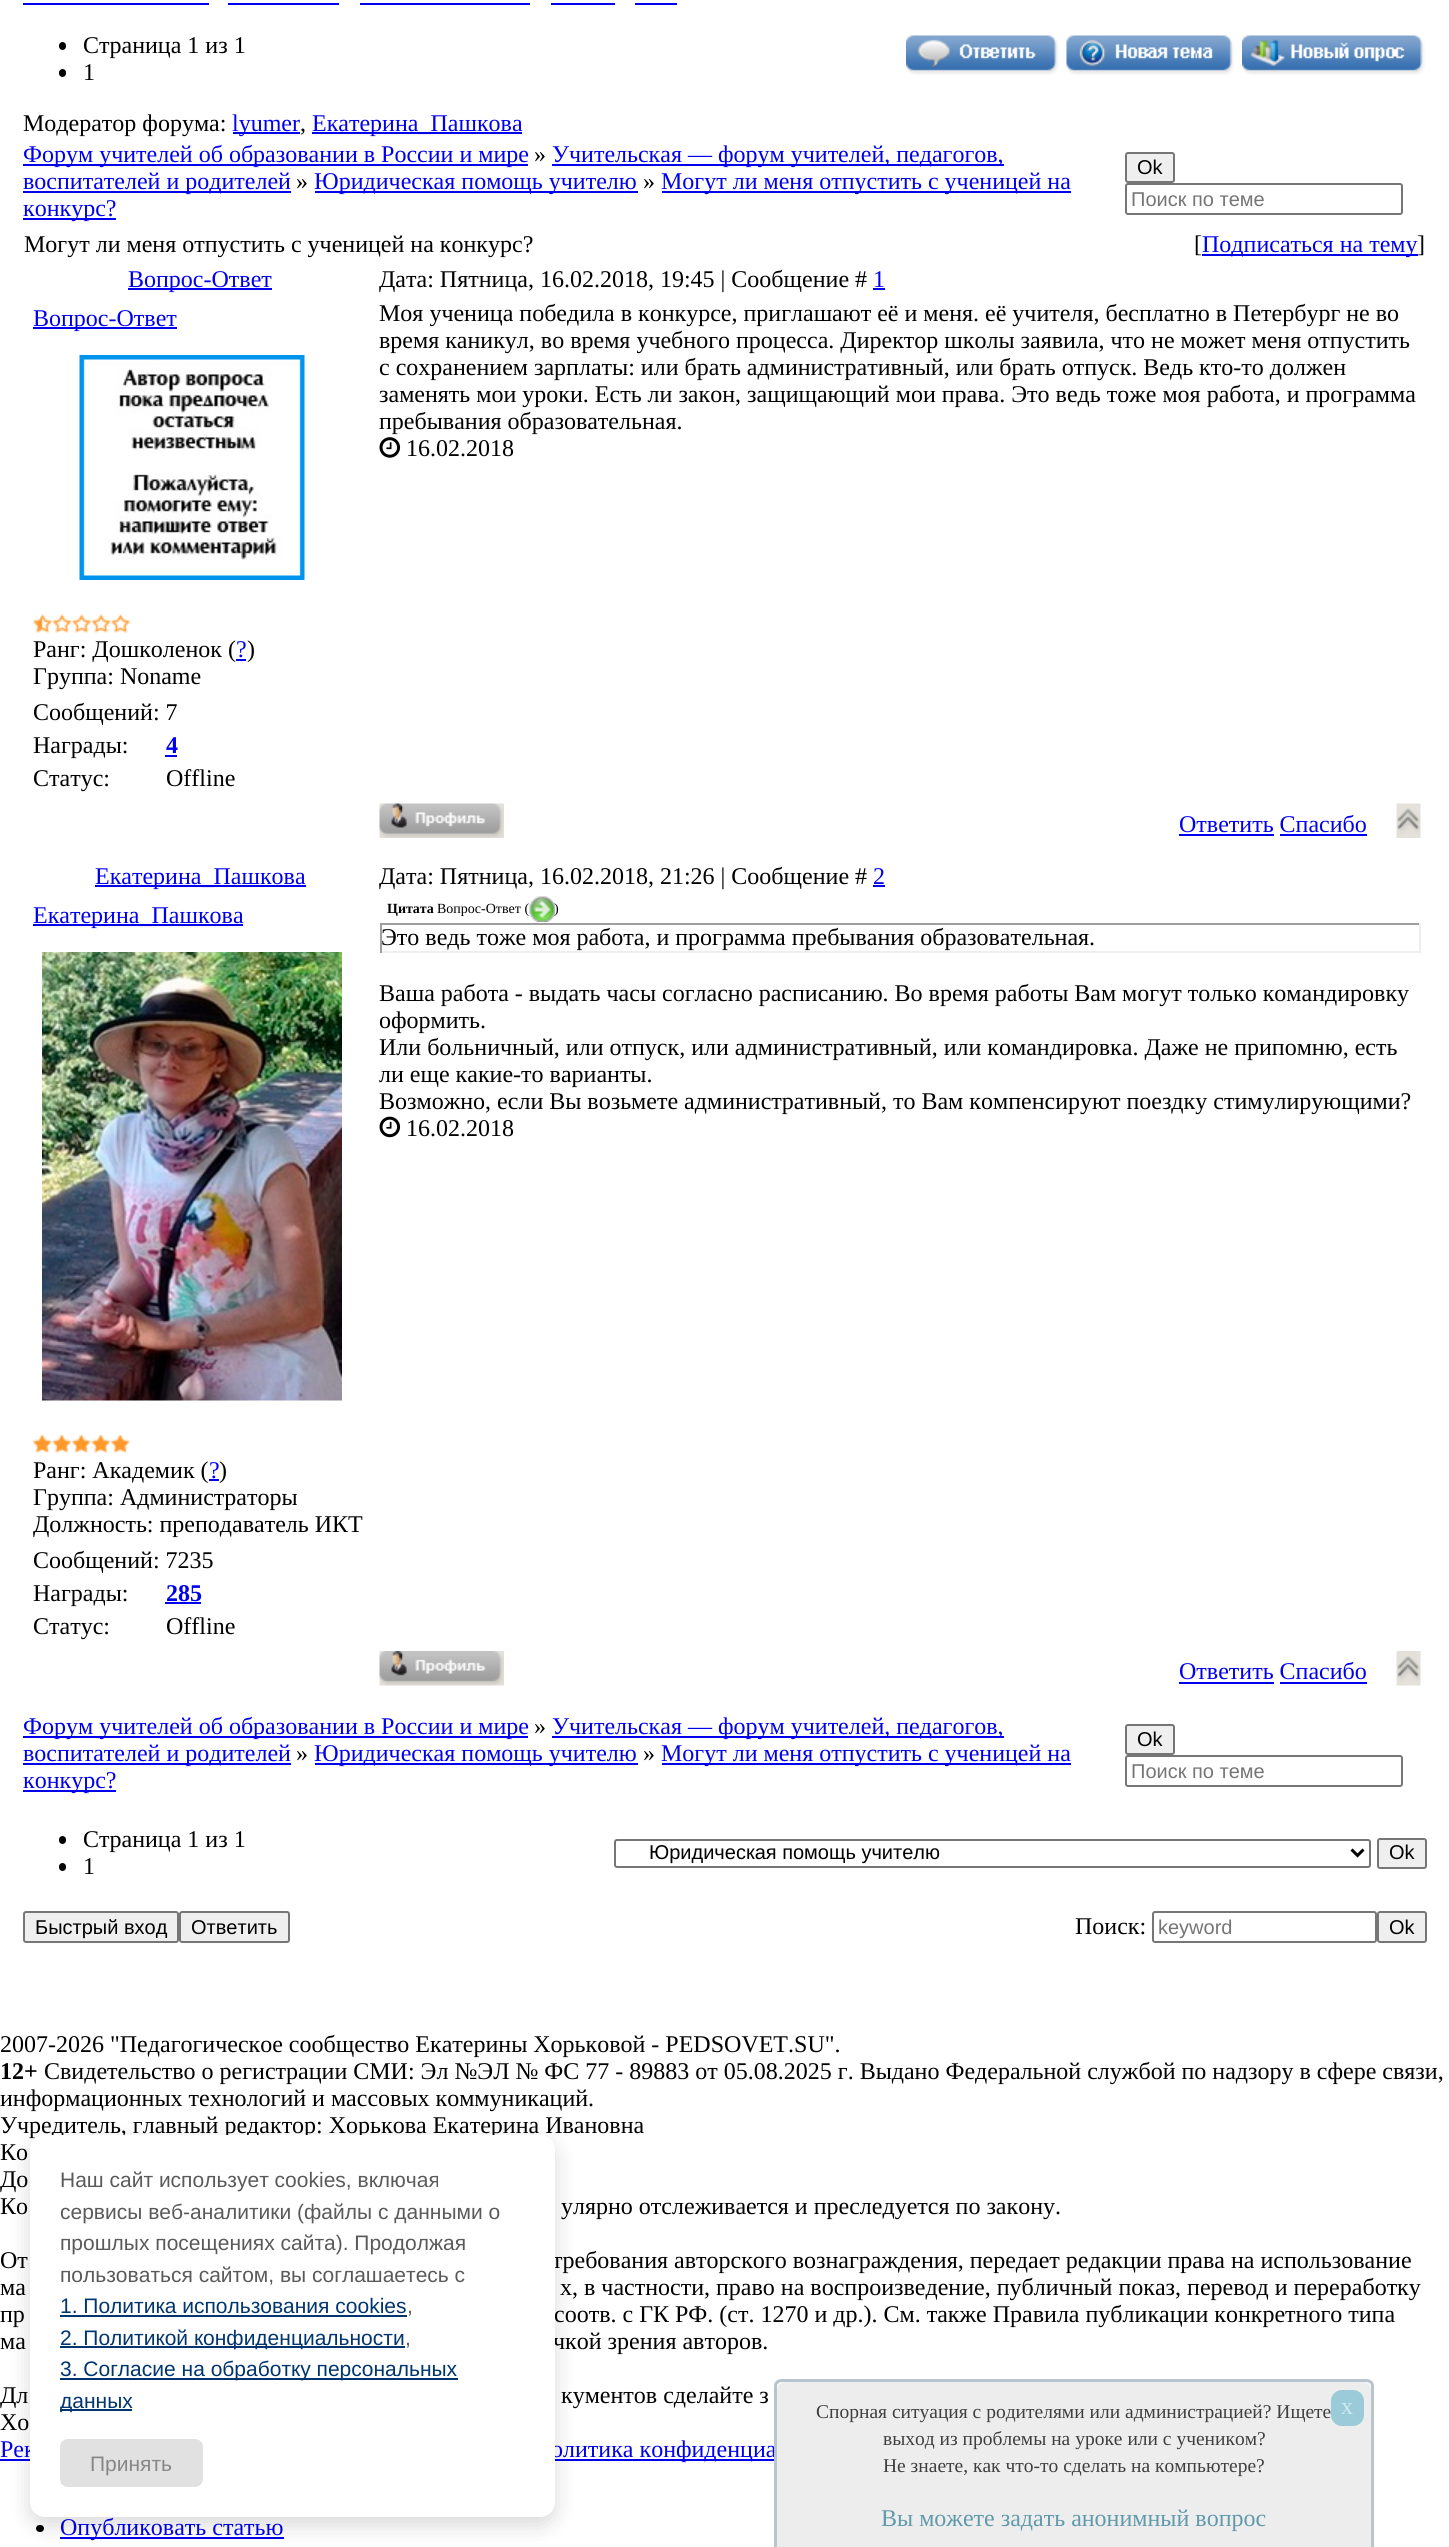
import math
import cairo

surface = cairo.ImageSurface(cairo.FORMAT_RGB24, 1449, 2547)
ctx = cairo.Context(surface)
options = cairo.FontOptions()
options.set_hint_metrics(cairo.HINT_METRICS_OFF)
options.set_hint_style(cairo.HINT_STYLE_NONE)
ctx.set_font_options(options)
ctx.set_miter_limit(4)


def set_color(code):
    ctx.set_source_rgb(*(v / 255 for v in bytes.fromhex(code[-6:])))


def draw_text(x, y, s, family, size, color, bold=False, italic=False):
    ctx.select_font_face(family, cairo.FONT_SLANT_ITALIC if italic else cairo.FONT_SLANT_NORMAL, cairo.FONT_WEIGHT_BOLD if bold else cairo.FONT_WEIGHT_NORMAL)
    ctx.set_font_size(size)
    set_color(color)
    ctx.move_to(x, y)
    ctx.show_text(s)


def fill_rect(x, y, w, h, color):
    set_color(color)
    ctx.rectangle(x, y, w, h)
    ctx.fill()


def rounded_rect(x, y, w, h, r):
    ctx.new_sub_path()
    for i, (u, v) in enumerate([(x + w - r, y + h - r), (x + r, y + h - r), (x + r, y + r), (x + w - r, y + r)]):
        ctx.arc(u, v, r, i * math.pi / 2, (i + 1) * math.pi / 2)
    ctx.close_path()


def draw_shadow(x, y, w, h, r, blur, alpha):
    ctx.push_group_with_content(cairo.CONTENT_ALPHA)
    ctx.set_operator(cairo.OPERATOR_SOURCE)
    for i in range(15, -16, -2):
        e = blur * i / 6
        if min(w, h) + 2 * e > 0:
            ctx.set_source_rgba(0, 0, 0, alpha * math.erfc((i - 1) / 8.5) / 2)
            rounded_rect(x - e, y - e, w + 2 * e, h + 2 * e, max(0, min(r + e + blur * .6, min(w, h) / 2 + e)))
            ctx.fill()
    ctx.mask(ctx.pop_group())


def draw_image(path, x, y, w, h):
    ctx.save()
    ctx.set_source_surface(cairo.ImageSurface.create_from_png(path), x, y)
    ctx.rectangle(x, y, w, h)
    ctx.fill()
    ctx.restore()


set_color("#ffffff")
ctx.paint()
fill_rect(23, 3, 186, 2, "#0000ee")
fill_rect(228, 3, 111, 2, "#0000ee")
fill_rect(360, 3, 170, 2, "#0000ee")
fill_rect(551, 3, 64, 2, "#0000ee")
fill_rect(635, 3, 42, 2, "#0000ee")
set_color("#000000")
rounded_rect(59, 42, 7, 8, 3.5)
ctx.fill()
draw_text(83, 53, "Страница 1 из 1", "Liberation Serif", 24, "#000000")
rounded_rect(59, 69, 7, 8, 3.5)
ctx.fill()
draw_text(83, 80, "1", "Liberation Serif", 24, "#000000")
draw_image("assets/img1.png", 906, 35, 153, 40)
draw_image("assets/img2.png", 1066, 35, 168, 40)
draw_image("assets/img3.png", 1242, 35, 183, 40)
draw_text(23, 131, "Модератор форума:", "Liberation Serif", 24, "#000000")
fill_rect(233, 132, 67, 2, "#0000ee")
draw_text(232, 131, "lyumer", "Liberation Serif", 24, "#0000ee")
draw_text(300, 131, ",", "Liberation Serif", 24, "#000000")
fill_rect(312, 132, 210, 2, "#0000ee")
draw_text(312, 131, "Екатерина_Пашкова", "Liberation Serif", 24, "#0000ee")
fill_rect(23, 164, 505, 2, "#0000ee")
draw_text(23, 162, "Форум учителей об образовании в России и мире", "Liberation Serif", 24, "#0000ee")
draw_text(534, 162, "»", "Liberation Serif", 24, "#000000")
fill_rect(552, 164, 452, 2, "#0000ee")
draw_text(552, 162, "Учительская — форум учителей, педагогов,", "Liberation Serif", 24, "#0000ee")
fill_rect(23, 191, 268, 2, "#0000ee")
draw_text(23, 189, "воспитателей и родителей", "Liberation Serif", 24, "#0000ee")
draw_text(296, 189, "»", "Liberation Serif", 24, "#000000")
fill_rect(315, 191, 323, 2, "#0000ee")
draw_text(314, 189, "Юридическая помощь учителю", "Liberation Serif", 24, "#0000ee")
draw_text(643, 189, "»", "Liberation Serif", 24, "#000000")
fill_rect(662, 191, 409, 2, "#0000ee")
draw_text(661, 189, "Могут ли меня отпустить с ученицей на", "Liberation Serif", 24, "#0000ee")
fill_rect(23, 218, 93, 2, "#0000ee")
draw_text(23, 216, "конкурс?", "Liberation Serif", 24, "#0000ee")
set_color("#efefef")
rounded_rect(1126, 153, 48, 29, 2)
ctx.fill_preserve()
set_color("#767676")
ctx.stroke()
draw_text(1137, 174, "Ok", "Liberation Sans", 20, "#000000")
rounded_rect(1126, 184, 276, 30, 2)
set_color("#767676")
ctx.stroke()
draw_text(1131, 206, "Поиск по теме", "Liberation Sans", 20, "#757575")
draw_text(24, 252, "Могут ли меня отпустить с ученицей на конкурс?", "Liberation Serif", 24, "#000000")
draw_text(1194, 252, "[", "Liberation Serif", 24, "#000000")
fill_rect(1202, 254, 216, 2, "#0000ee")
draw_text(1202, 252, "Подписаться на тему", "Liberation Serif", 24, "#0000ee")
draw_text(1417, 252, "]", "Liberation Serif", 24, "#000000")
fill_rect(128, 288, 144, 2, "#0000ee")
draw_text(128, 287, "Вопрос-Ответ", "Liberation Serif", 24, "#0000ee")
draw_text(379, 287, "Дата: Пятница, 16.02.2018, 19:45 | Сообщение #", "Liberation Serif", 24, "#000000")
draw_text(873, 287, "1", "Liberation Serif", 24, "#0000ee")
fill_rect(873, 288, 12, 2, "#0000ee")
fill_rect(33, 327, 144, 2, "#0000ee")
draw_text(33, 326, "Вопрос-Ответ", "Liberation Serif", 24, "#0000ee")
draw_image("assets/img4.png", 79, 355, 226, 225)
draw_image("assets/img5.png", 33, 614, 98, 20)
draw_text(33, 657, "Ранг: Дошколенок (", "Liberation Serif", 24, "#000000")
draw_text(236, 657, "?", "Liberation Serif", 24, "#0000ee")
fill_rect(236, 659, 10, 2, "#0000ee")
draw_text(247, 657, ")", "Liberation Serif", 24, "#000000")
draw_text(33, 684, "Группа: Noname", "Liberation Serif", 24, "#000000")
draw_text(33, 720, "Сообщений: 7", "Liberation Serif", 24, "#000000")
draw_text(33, 753, "Награды:", "Liberation Serif", 24, "#000000")
draw_text(166, 753, "4", "Liberation Serif", 24, "#0000ee", bold=True)
fill_rect(165, 755, 12, 2, "#0000ee")
draw_text(33, 786, "Статус:", "Liberation Serif", 24, "#000000")
draw_text(166, 786, "Offline", "Liberation Serif", 24, "#000000")
draw_text(379, 321, "Моя ученица победила в конкурсе, приглашают её и меня. её учителя, бесплатно в Петербург не во", "Liberation Serif", 24, "#000000")
draw_text(379, 348, "время каникул, во время учебного процесса. Директор школы заявила, что не может меня отпустить", "Liberation Serif", 24, "#000000")
draw_text(379, 375, "с сохранением зарплаты: или брать административный, или брать отпуск. Ведь кто-то должен", "Liberation Serif", 24, "#000000")
draw_text(379, 402, "заменять мои уроки. Есть ли закон, защищающий мои права. Это ведь тоже моя работа, и программа", "Liberation Serif", 24, "#000000")
draw_text(379, 429, "пребывания образовательная.", "Liberation Serif", 24, "#000000")
draw_image("assets/img6.png", 379, 437, 22, 21)
draw_text(406, 456, "16.02.2018", "Liberation Serif", 24, "#000000")
draw_image("assets/img7.png", 379, 803, 125, 35)
draw_text(1179, 832, "Ответить Спасибо", "Liberation Serif", 24, "#0000ee")
fill_rect(1179, 834, 95, 2, "#0000ee")
fill_rect(1280, 834, 87, 2, "#0000ee")
draw_image("assets/img8.png", 1396, 803, 25, 35)
fill_rect(95, 885, 211, 2, "#0000ee")
draw_text(95, 884, "Екатерина_Пашкова", "Liberation Serif", 24, "#0000ee")
draw_text(379, 884, "Дата: Пятница, 16.02.2018, 21:26 | Сообщение #", "Liberation Serif", 24, "#000000")
draw_text(873, 884, "2", "Liberation Serif", 24, "#0000ee")
fill_rect(873, 885, 12, 2, "#0000ee")
fill_rect(33, 924, 210, 2, "#0000ee")
draw_text(33, 923, "Екатерина_Пашкова", "Liberation Serif", 24, "#0000ee")
draw_image("assets/img9.png", 42, 952, 300, 449)
draw_image("assets/img10.png", 33, 1435, 98, 19)
draw_text(33, 1478, "Ранг: Академик (", "Liberation Serif", 24, "#000000")
draw_text(209, 1478, "?", "Liberation Serif", 24, "#0000ee")
fill_rect(209, 1479, 10, 2, "#0000ee")
draw_text(219, 1478, ")", "Liberation Serif", 24, "#000000")
draw_text(33, 1505, "Группа: Администраторы", "Liberation Serif", 24, "#000000")
draw_text(33, 1532, "Должность: преподаватель ИКТ", "Liberation Serif", 24, "#000000")
draw_text(33, 1568, "Сообщений: 7235", "Liberation Serif", 24, "#000000")
draw_text(33, 1601, "Награды:", "Liberation Serif", 24, "#000000")
draw_text(166, 1601, "285", "Liberation Serif", 24, "#0000ee", bold=True)
fill_rect(165, 1602, 36, 2, "#0000ee")
draw_text(33, 1634, "Статус:", "Liberation Serif", 24, "#000000")
draw_text(166, 1634, "Offline", "Liberation Serif", 24, "#000000")
draw_text(387, 913, "Цитата", "Liberation Serif", 14, "#000000", bold=True)
draw_text(437, 913, "Вопрос-Ответ (", "Liberation Serif", 14, "#000000")
draw_image("assets/img11.png", 529, 896, 26, 26)
draw_text(554, 913, ")", "Liberation Serif", 14, "#000000")
fill_rect(380, 923, 1041, 2, "#9f9f9f")
fill_rect(1419, 923, 2, 30, "#eeeeee")
fill_rect(380, 951, 1041, 2, "#eeeeee")
fill_rect(380, 923, 2, 30, "#9f9f9f")
draw_text(381, 945, "Это ведь тоже моя работа, и программа пребывания образовательная.", "Liberation Serif", 24, "#000000")
draw_text(379, 1001, "Ваша работа - выдать часы согласно расписанию. Во время работы Вам могут только командировку", "Liberation Serif", 24, "#000000")
draw_text(379, 1028, "оформить.", "Liberation Serif", 24, "#000000")
draw_text(379, 1055, "Или больничный, или отпуск, или административный, или командировка. Даже не припомню, есть", "Liberation Serif", 24, "#000000")
draw_text(379, 1082, "ли еще какие-то варианты.", "Liberation Serif", 24, "#000000")
draw_text(379, 1109, "Возможно, если Вы возьмете административный, то Вам компенсируют поездку стимулирующими?", "Liberation Serif", 24, "#000000")
draw_image("assets/img12.png", 379, 1116, 22, 22)
draw_text(406, 1136, "16.02.2018", "Liberation Serif", 24, "#000000")
draw_image("assets/img13.png", 379, 1651, 125, 35)
draw_text(1179, 1679, "Ответить Спасибо", "Liberation Serif", 24, "#0000ee")
fill_rect(1179, 1682, 95, 2, "#0000ee")
fill_rect(1280, 1682, 87, 2, "#0000ee")
draw_image("assets/img14.png", 1396, 1651, 25, 35)
fill_rect(23, 1736, 505, 2, "#0000ee")
draw_text(23, 1734, "Форум учителей об образовании в России и мире", "Liberation Serif", 24, "#0000ee")
draw_text(534, 1734, "»", "Liberation Serif", 24, "#000000")
fill_rect(552, 1736, 452, 2, "#0000ee")
draw_text(552, 1734, "Учительская — форум учителей, педагогов,", "Liberation Serif", 24, "#0000ee")
fill_rect(23, 1763, 268, 2, "#0000ee")
draw_text(23, 1761, "воспитателей и родителей", "Liberation Serif", 24, "#0000ee")
draw_text(296, 1761, "»", "Liberation Serif", 24, "#000000")
fill_rect(315, 1763, 323, 2, "#0000ee")
draw_text(314, 1761, "Юридическая помощь учителю", "Liberation Serif", 24, "#0000ee")
draw_text(643, 1761, "»", "Liberation Serif", 24, "#000000")
fill_rect(662, 1763, 409, 2, "#0000ee")
draw_text(661, 1761, "Могут ли меня отпустить с ученицей на", "Liberation Serif", 24, "#0000ee")
fill_rect(23, 1790, 93, 2, "#0000ee")
draw_text(23, 1788, "конкурс?", "Liberation Serif", 24, "#0000ee")
set_color("#efefef")
rounded_rect(1126, 1725, 48, 29, 2)
ctx.fill_preserve()
set_color("#767676")
ctx.stroke()
draw_text(1137, 1746, "Ok", "Liberation Sans", 20, "#000000")
rounded_rect(1126, 1756, 276, 30, 2)
set_color("#767676")
ctx.stroke()
draw_text(1131, 1778, "Поиск по теме", "Liberation Sans", 20, "#757575")
set_color("#000000")
rounded_rect(59, 1836, 7, 8, 3.5)
ctx.fill()
draw_text(83, 1847, "Страница 1 из 1", "Liberation Serif", 24, "#000000")
rounded_rect(59, 1863, 7, 8, 3.5)
ctx.fill()
draw_text(83, 1874, "1", "Liberation Serif", 24, "#000000")
rounded_rect(615, 1840, 755, 27, 2)
set_color("#767676")
ctx.stroke()
ctx.new_path()
ctx.move_to(1351.5, 1849.5)
ctx.line_to(1357.5, 1855.5)
ctx.line_to(1363.5, 1849.5)
set_color("#000000")
ctx.set_line_width(3)
ctx.stroke()
draw_text(649, 1859, "Юридическая помощь учителю", "Liberation Sans", 20, "#000000")
set_color("#efefef")
rounded_rect(1378, 1839, 48, 29, 2)
ctx.fill_preserve()
set_color("#767676")
ctx.set_line_width(2)
ctx.stroke()
draw_text(1389, 1859, "Ok", "Liberation Sans", 20, "#000000")
set_color("#efefef")
rounded_rect(24, 1912, 154, 30, 2)
ctx.fill_preserve()
set_color("#767676")
ctx.stroke()
draw_text(35, 1934, "Быстрый вход", "Liberation Sans", 20, "#000000")
set_color("#efefef")
rounded_rect(180, 1912, 109, 30, 2)
ctx.fill_preserve()
set_color("#767676")
ctx.stroke()
draw_text(191, 1934, "Ответить", "Liberation Sans", 20, "#000000")
draw_text(1075, 1934, "Поиск:", "Liberation Serif", 24, "#000000")
rounded_rect(1153, 1912, 223, 30, 2)
set_color("#767676")
ctx.stroke()
draw_text(1158, 1934, "keyword", "Liberation Sans", 20, "#757575")
set_color("#efefef")
rounded_rect(1378, 1912, 48, 30, 2)
ctx.fill_preserve()
set_color("#767676")
ctx.stroke()
draw_text(1389, 1934, "Ok", "Liberation Sans", 20, "#000000")
draw_text(0, 2052, "2007-2026 \"Педагогическое сообщество Екатерины Хорьковой - PEDSOVET.SU\".", "Liberation Serif", 24, "#000000")
draw_text(0, 2079, "12+", "Liberation Serif", 24, "#000000", bold=True)
draw_text(44, 2079, "Свидетельство о регистрации СМИ: Эл №ЭЛ № ФС 77 - 89883 от 05.08.2025 г. Выдано Федеральной службой по надзору в сфере связи,", "Liberation Serif", 24, "#000000")
draw_text(0, 2106, "информационных технологий и массовых коммуникаций.", "Liberation Serif", 24, "#000000")
draw_text(0, 2133, "Учредитель, главный редактор: Хорькова Екатерина Ивановна", "Liberation Serif", 24, "#000000")
draw_text(0, 2160, "Ко", "Liberation Serif", 24, "#000000")
draw_text(0, 2187, "До", "Liberation Serif", 24, "#000000")
draw_text(0, 2214, "Ко", "Liberation Serif", 24, "#000000")
draw_text(561, 2214, "улярно отслеживается и преследуется по закону.", "Liberation Serif", 24, "#000000")
draw_text(0, 2268, "От", "Liberation Serif", 24, "#000000")
draw_text(552, 2268, "требования авторского вознаграждения, передает редакции права на использование", "Liberation Serif", 24, "#000000")
draw_text(0, 2295, "ма", "Liberation Serif", 24, "#000000")
draw_text(560, 2295, "х, в частности, право на воспроизведение, публичный показ, перевод и переработку", "Liberation Serif", 24, "#000000")
draw_text(0, 2322, "пр", "Liberation Serif", 24, "#000000")
draw_text(554, 2322, "соотв. с ГК РФ. (ст. 1270 и др.). См. также Правила публикации конкретного типа", "Liberation Serif", 24, "#000000")
draw_text(0, 2349, "ма", "Liberation Serif", 24, "#000000")
draw_text(553, 2349, "чкой зрения авторов.", "Liberation Serif", 24, "#000000")
draw_text(0, 2403, "Дл", "Liberation Serif", 24, "#000000")
draw_text(561, 2403, "кументов сделайте з", "Liberation Serif", 24, "#000000")
draw_text(0, 2430, "Хо", "Liberation Serif", 24, "#000000")
draw_text(0, 2457, "Рек", "Liberation Serif", 24, "#0000ee")
fill_rect(0, 2459, 30, 2, "#0000ee")
fill_rect(555, 2459, 219, 2, "#0000ee")
draw_text(551, 2457, "олитика конфиденциа", "Liberation Serif", 24, "#0000ee")
set_color("#000000")
rounded_rect(36, 2525, 8, 7, 3.5)
ctx.fill()
fill_rect(60, 2537, 224, 2, "#0000ee")
draw_text(60, 2535, "Опубликовать статью", "Liberation Serif", 24, "#0000ee")
set_color("#000000")
draw_shadow(30, 2142, 525, 383, 15, 11, 0.15)
set_color("#ffffff")
rounded_rect(30, 2135, 525, 382, 15)
ctx.fill()
draw_text(60, 2187, "Наш сайт использует cookies, включая", "Liberation Sans", 21, "#5a5a5a")
draw_text(60, 2219, "сервисы веб-аналитики (файлы с данными о", "Liberation Sans", 21, "#5a5a5a")
draw_text(60, 2250, "прошлых посещениях сайта). Продолжая", "Liberation Sans", 21, "#5a5a5a")
draw_text(60, 2282, "пользоваться сайтом, вы соглашаетесь с", "Liberation Sans", 21, "#5a5a5a")
draw_text(60, 2313, "1. Политика использования cookies", "Liberation Sans", 21, "#01356f")
fill_rect(60, 2315, 347, 2, "#01356f")
draw_text(407, 2313, ",", "Liberation Sans", 21, "#5a5a5a")
fill_rect(60, 2346, 345, 2, "#01356f")
draw_text(60, 2345, "2. Политикой конфиденциальности", "Liberation Sans", 21, "#01356f")
draw_text(405, 2345, ",", "Liberation Sans", 21, "#5a5a5a")
fill_rect(60, 2378, 398, 2, "#01356f")
draw_text(60, 2376, "3. Согласие на обработку персональных", "Liberation Sans", 21, "#01356f")
fill_rect(60, 2409, 72, 2, "#01356f")
draw_text(60, 2408, "данных", "Liberation Sans", 21, "#01356f")
set_color("#e1e1e1")
rounded_rect(60, 2439, 143, 48, 8)
ctx.fill()
draw_text(90, 2471, "Принять", "Liberation Sans", 21, "#878787")
set_color("#b6c5ce")
ctx.set_fill_rule(cairo.FILL_RULE_EVEN_ODD)
ctx.new_path()
ctx.move_to(782, 2379)
ctx.line_to(1366, 2379)
ctx.curve_to(1371, 2379, 1374, 2382, 1374, 2386)
ctx.line_to(1374, 2547)
ctx.line_to(774, 2547)
ctx.line_to(774, 2386)
ctx.curve_to(774, 2382, 777, 2379, 782, 2379)
ctx.close_path()
ctx.move_to(782, 2382)
ctx.line_to(1366, 2382)
ctx.curve_to(1369, 2382, 1371, 2384, 1371, 2386)
ctx.line_to(1371, 2547)
ctx.line_to(777, 2547)
ctx.line_to(777, 2386)
ctx.curve_to(777, 2384, 779, 2382, 782, 2382)
ctx.close_path()
ctx.fill()
set_color("#ededed")
ctx.new_path()
ctx.move_to(785, 2382)
ctx.line_to(1363, 2382)
ctx.curve_to(1367.5, 2382, 1371, 2385.5, 1371, 2390)
ctx.line_to(1371, 2547)
ctx.line_to(777, 2547)
ctx.line_to(777, 2390)
ctx.curve_to(777, 2385.5, 780.5, 2382, 785, 2382)
ctx.close_path()
ctx.fill()
draw_text(816, 2418, "Спорная ситуация с родителями или администрацией? Ищете", "Liberation Serif", 19.5, "#3f3f3f")
set_color("#9bcad9")
rounded_rect(1331, 2390, 33, 36, 11)
ctx.fill()
draw_text(1341, 2414, "х", "Liberation Serif", 24, "#ceeaf3")
draw_text(883, 2445, "выход из проблемы на уроке или с учеником?", "Liberation Serif", 19.5, "#3f3f3f")
draw_text(883, 2472, "Не знаете, как что-то сделать на компьютере?", "Liberation Serif", 19.5, "#3f3f3f")
draw_text(881, 2526, "Вы можете задать анонимный вопрос", "Liberation Serif", 24, "#619aab")
surface.write_to_png("output.png")
